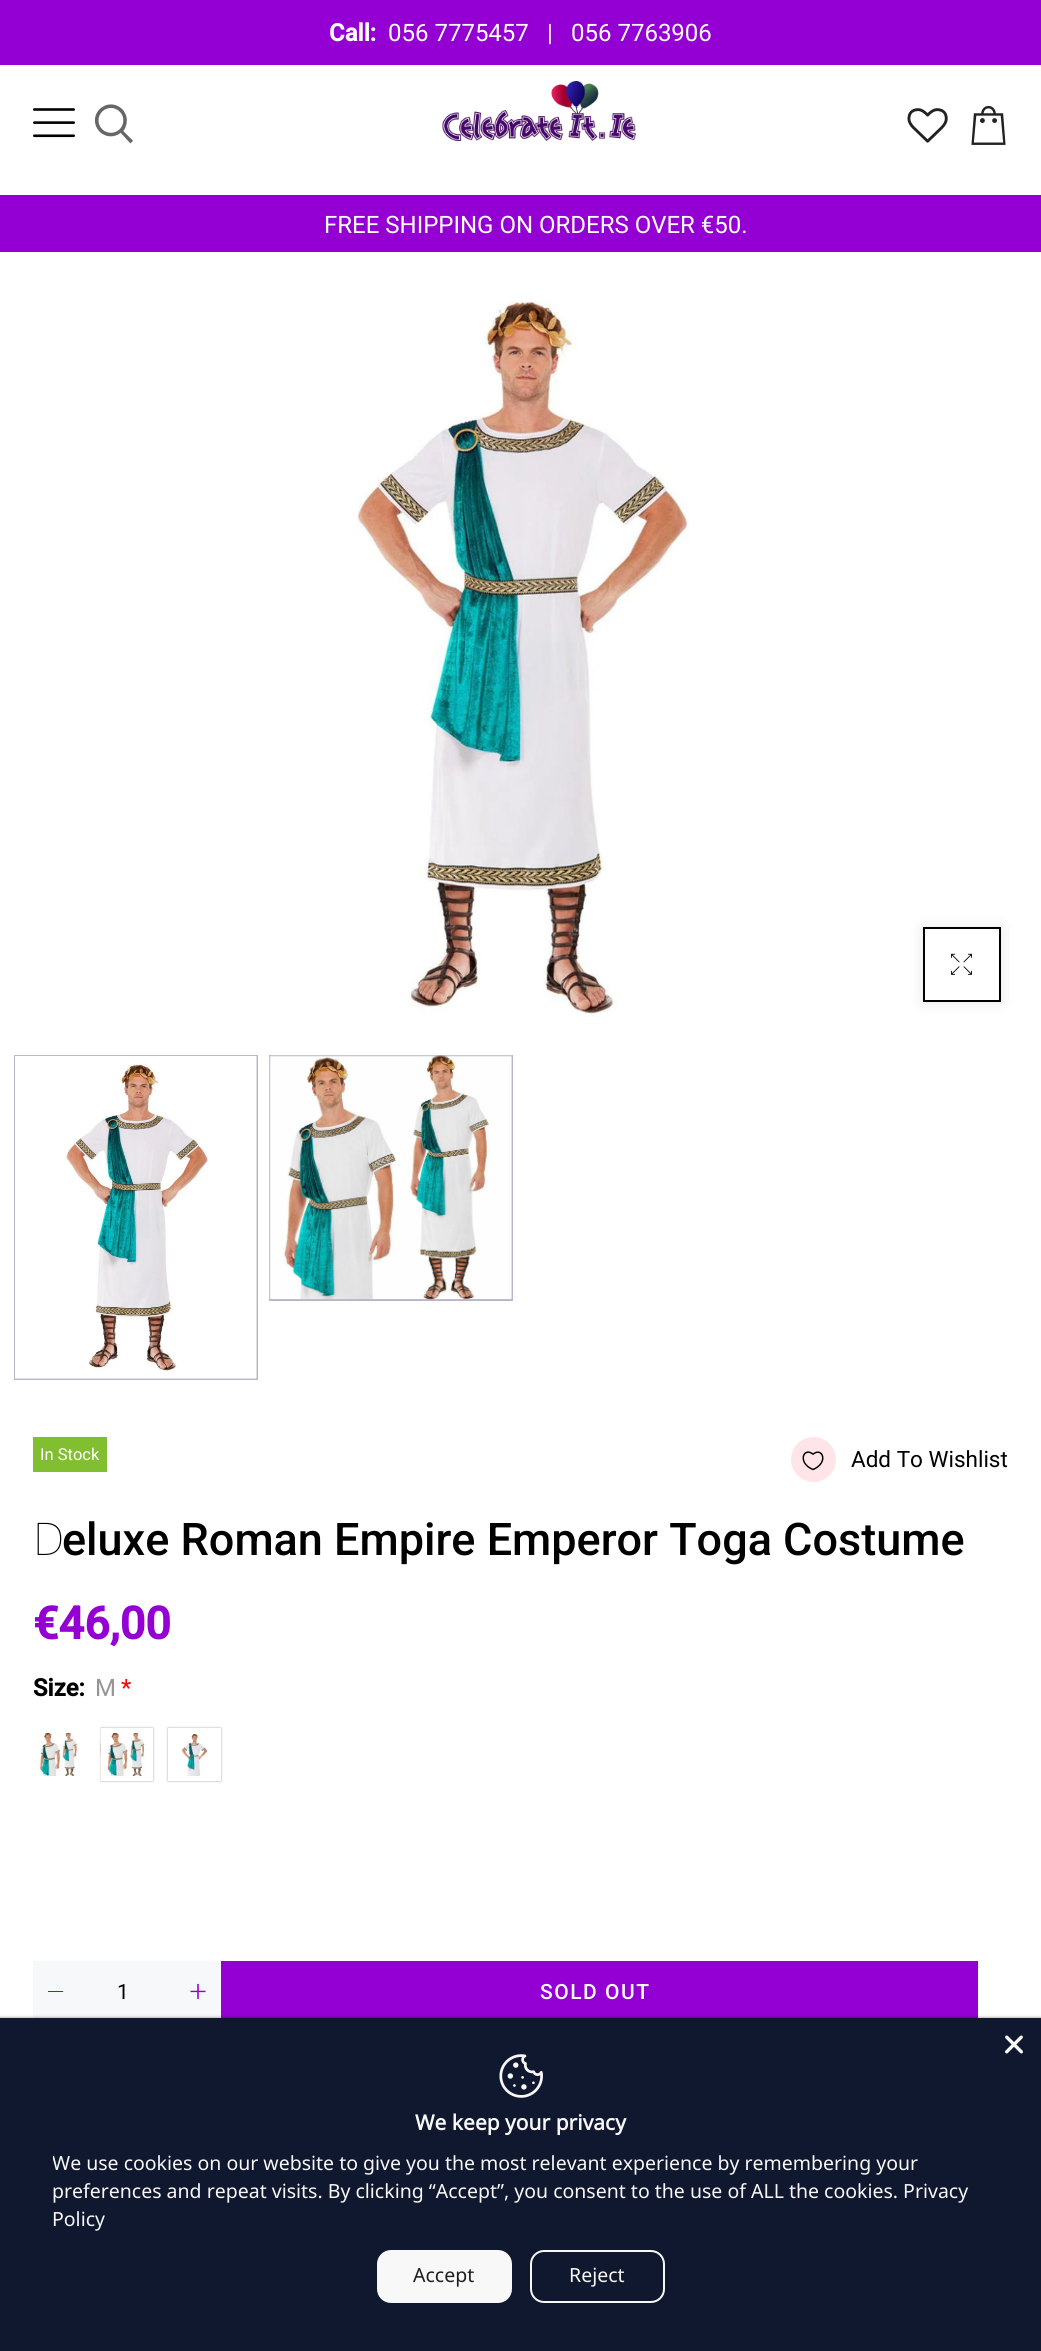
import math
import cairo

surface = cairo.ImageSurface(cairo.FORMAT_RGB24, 1041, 2351)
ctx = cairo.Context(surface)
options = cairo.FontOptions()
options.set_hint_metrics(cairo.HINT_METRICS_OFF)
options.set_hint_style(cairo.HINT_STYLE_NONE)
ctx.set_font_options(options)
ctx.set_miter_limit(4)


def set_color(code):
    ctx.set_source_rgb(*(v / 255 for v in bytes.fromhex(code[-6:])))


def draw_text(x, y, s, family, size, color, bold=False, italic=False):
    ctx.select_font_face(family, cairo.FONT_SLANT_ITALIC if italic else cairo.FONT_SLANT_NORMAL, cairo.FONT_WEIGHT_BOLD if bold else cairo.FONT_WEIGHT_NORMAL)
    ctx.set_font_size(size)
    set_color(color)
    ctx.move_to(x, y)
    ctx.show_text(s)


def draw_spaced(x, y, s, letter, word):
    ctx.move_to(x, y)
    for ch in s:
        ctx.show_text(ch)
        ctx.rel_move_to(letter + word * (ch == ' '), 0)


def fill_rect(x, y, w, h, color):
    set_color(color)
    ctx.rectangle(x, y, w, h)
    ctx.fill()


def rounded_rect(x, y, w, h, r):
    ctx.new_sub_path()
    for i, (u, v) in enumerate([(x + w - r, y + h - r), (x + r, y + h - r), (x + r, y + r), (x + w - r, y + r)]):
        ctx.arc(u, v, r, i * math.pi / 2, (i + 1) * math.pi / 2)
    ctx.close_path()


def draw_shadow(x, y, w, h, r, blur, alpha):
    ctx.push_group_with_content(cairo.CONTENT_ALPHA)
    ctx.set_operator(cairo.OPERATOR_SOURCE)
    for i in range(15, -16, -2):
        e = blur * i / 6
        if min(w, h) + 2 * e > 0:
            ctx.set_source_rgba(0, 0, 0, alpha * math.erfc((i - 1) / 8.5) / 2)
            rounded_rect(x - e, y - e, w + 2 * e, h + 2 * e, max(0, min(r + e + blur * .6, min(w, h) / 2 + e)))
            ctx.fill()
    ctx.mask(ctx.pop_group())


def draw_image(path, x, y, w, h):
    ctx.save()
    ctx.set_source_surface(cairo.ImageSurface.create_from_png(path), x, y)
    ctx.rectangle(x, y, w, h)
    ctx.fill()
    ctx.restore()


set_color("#ffffff")
ctx.paint()
fill_rect(0, 0, 1041, 65, "#9400d3")
draw_text(329, 41, "Call:", "Roboto", 24, "#ffffff", bold=True)
draw_text(388, 41, "056 7775457", "Roboto", 24, "#ffffff")
draw_text(547, 41, "|", "Roboto", 24, "#ffffff")
draw_text(571, 41, "056 7763906", "Roboto", 24, "#ffffff")
draw_image("assets/img1.png", 33, 108, 42, 30)
draw_image("assets/img2.png", 94, 104, 39, 40)
draw_image("assets/img3.png", 442, 81, 194, 60)
draw_image("assets/img4.png", 907, 108, 41, 35)
draw_image("assets/img5.png", 971, 105, 35, 40)
fill_rect(0, 195, 1041, 57, "#9400d3")
draw_text(324, 233, "FREE SHIPPING ON ORDERS OVER €50.", "Roboto", 24, "#ffffff")
draw_image("assets/img6.png", 357, 301, 332, 716)
set_color("#000000")
draw_shadow(923, 927, 78, 75, 0, 7, 0.1)
set_color("#ffffff")
ctx.rectangle(924, 928, 76, 73)
ctx.fill_preserve()
set_color("#000000")
ctx.stroke()
draw_image("assets/img7.png", 951, 953, 21, 22)
ctx.rectangle(15, 1056, 242, 323)
set_color("#b9b4c8")
ctx.stroke()
draw_image("assets/img8.png", 15, 1055, 242, 324)
ctx.rectangle(270, 1056, 242, 244)
ctx.stroke()
draw_image("assets/img9.png", 269, 1055, 243, 245)
fill_rect(33, 1437, 74, 35, "#81bf30")
draw_text(40, 1460, "In Stock", "Roboto", 16.5, "#ffffff")
set_color("#ffe5e7")
ctx.new_path()
ctx.arc(813.5, 1459.5, 22.5, 0, 2 * math.pi)
ctx.fill()
draw_image("assets/img10.png", 802, 1451, 22, 20)
draw_text(851, 1467, "Add To Wishlist", "Roboto", 22.5, "#000000")
draw_text(33, 1555, "D", "Noto Sans Thin", 45, "#000000")
draw_text(62, 1555, "eluxe Roman Empire Emperor Toga Costume", "Roboto Medium", 45, "#000000")
draw_text(33, 1639, "€46,00", "Roboto", 45, "#9400d3", bold=True)
draw_text(33, 1696, "Size:", "Roboto", 24, "#000000", bold=True)
draw_text(95, 1696, "M", "Roboto", 24, "#959595")
draw_text(121, 1696, "*", "Roboto", 24, "#ff0000")
draw_image("assets/img11.png", 38, 1733, 43, 43)
set_color("#a0a0a0")
draw_shadow(101, 1728, 52, 53, 0, 1, 1)
draw_image("assets/img12.png", 100, 1728, 48, 53)
ctx.rectangle(103.5, 1730.5, 47, 48)
set_color("#ffffff")
ctx.set_line_width(5)
ctx.stroke()
set_color("#a0a0a0")
draw_shadow(168, 1728, 53, 53, 0, 1, 1)
draw_image("assets/img13.png", 173, 1733, 43, 43)
ctx.rectangle(170.5, 1730.5, 48, 48)
set_color("#ffffff")
ctx.stroke()
fill_rect(33, 1961, 188, 57, "#f7f8fa")
fill_rect(48, 1991, 15, 1, "#9400d3")
draw_text(117, 1999, "1", "Roboto", 21, "#000000")
draw_image("assets/img14.png", 190, 1983, 16, 16)
fill_rect(221, 1961, 757, 57, "#9400d3")
ctx.select_font_face("Roboto Medium")
set_color("#ffffff")
draw_spaced(540, 1999, "SOLD OUT", 1.5, 0)
set_color("#000000")
draw_shadow(0, 2018, 1041, 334, 0, 1.5, 0.5)
fill_rect(0, 2018, 1041, 333, "#10182f")
draw_image("assets/img15.png", 1005, 2035, 18, 19)
draw_image("assets/img16.png", 499, 2054, 44, 44)
draw_text(415, 2130, "We keep your privacy", "Noto Sans", 21, "#f8f8f8", bold=True)
ctx.save()
ctx.rectangle(53, 2150, 936, 84)
ctx.clip()
draw_text(52, 2170, "We use cookies on our website to give you the most relevant experience by remembering your", "Noto Sans", 19.5, "#f8f8f8")
ctx.restore()
draw_text(52, 2198, "preferences and repeat visits. By clicking “Accept”, you consent to the use of ALL the cookies. Privacy", "Noto Sans", 19.5, "#f8f8f8")
draw_text(52, 2226, "Policy", "Noto Sans", 19.5, "#f8f8f8")
rounded_rect(377, 2250, 135, 53, 14)
ctx.fill()
draw_text(413, 2282, "Accept", "Noto Sans", 19.5, "#1d1d1d")
rounded_rect(531, 2251, 133, 51, 13)
set_color("#f8f8f8")
ctx.set_line_width(2)
ctx.stroke()
draw_text(569, 2282, "Reject", "Noto Sans", 19.5, "#f8f8f8")
surface.write_to_png("output.png")
